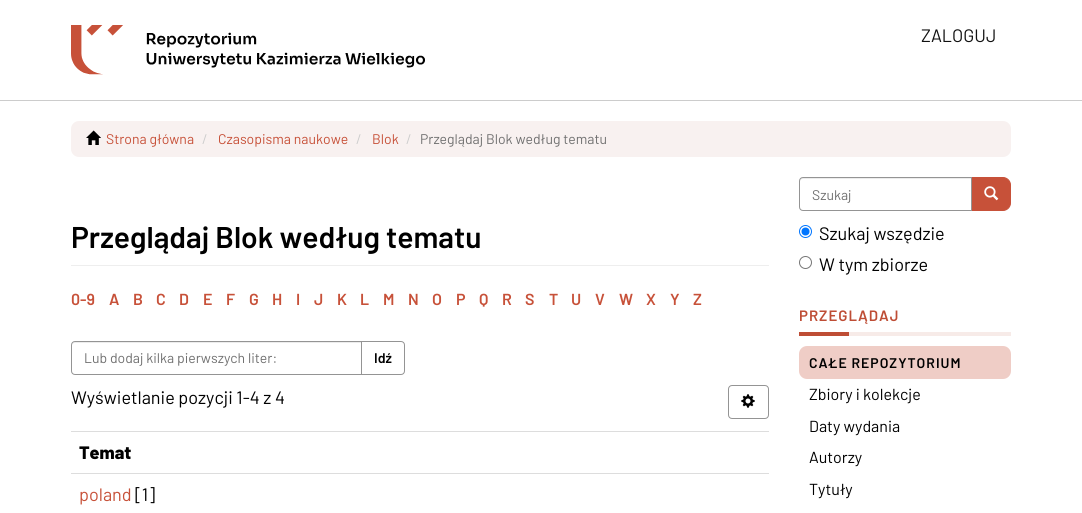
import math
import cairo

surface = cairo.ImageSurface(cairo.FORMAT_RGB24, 1082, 513)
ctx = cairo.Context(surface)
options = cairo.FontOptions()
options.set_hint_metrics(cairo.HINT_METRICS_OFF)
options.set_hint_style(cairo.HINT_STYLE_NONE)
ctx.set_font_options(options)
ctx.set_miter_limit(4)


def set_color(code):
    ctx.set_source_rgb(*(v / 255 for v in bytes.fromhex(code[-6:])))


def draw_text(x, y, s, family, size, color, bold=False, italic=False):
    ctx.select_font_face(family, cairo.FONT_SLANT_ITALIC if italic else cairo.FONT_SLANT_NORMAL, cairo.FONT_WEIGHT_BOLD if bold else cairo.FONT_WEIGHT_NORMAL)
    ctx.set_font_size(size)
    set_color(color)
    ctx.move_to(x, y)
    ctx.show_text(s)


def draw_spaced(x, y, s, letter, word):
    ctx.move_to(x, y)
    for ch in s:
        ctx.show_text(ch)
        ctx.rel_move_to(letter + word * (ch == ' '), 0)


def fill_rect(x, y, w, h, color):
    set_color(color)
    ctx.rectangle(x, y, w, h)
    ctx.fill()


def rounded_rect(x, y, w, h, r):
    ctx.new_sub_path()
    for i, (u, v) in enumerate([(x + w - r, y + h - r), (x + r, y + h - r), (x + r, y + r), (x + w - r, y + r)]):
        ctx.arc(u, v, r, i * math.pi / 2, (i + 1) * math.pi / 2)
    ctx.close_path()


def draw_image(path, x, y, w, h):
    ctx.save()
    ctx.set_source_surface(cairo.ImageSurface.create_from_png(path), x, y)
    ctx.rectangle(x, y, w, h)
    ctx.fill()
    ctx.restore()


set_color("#ffffff")
ctx.paint()
fill_rect(0, 100, 1082, 1, "#cccccc")
draw_image("assets/img1.png", 71, 25, 354, 50)
draw_text(921, 42, "ZALOGUJ", "Barlow", 18, "#111111")
set_color("#f8f1f0")
rounded_rect(71, 121, 940, 36, 8)
ctx.fill()
draw_image("assets/img2.png", 86, 130, 15, 15)
draw_text(106, 144, "Strona główna", "Barlow", 14, "#c75139")
draw_text(202, 144, "/", "Barlow", 14, "#cccccc")
draw_text(218, 144, "Czasopisma naukowe", "Barlow", 14, "#c75139")
draw_text(356, 144, "/", "Barlow", 14, "#cccccc")
draw_text(372, 144, "Blok", "Barlow", 14, "#c75139")
draw_text(406, 144, "/", "Barlow", 14, "#cccccc")
draw_text(420, 144, "Przeglądaj Blok według tematu", "Barlow", 14, "#707070")
fill_rect(71, 265, 698, 1, "#eeeeee")
draw_text(71, 248, "Przeglądaj Blok według tematu", "Barlow SemiBold", 30, "#000000")
draw_text(71, 305, "0-9", "Barlow SemiBold", 16, "#c75139")
draw_text(109, 305, "A", "Barlow SemiBold", 16, "#c75139")
draw_text(133, 305, "B", "Barlow SemiBold", 16, "#c75139")
draw_text(156, 305, "C", "Barlow SemiBold", 16, "#c75139")
draw_text(179, 305, "D", "Barlow SemiBold", 16, "#c75139")
draw_text(203, 305, "E", "Barlow SemiBold", 16, "#c75139")
draw_text(226, 305, "F", "Barlow SemiBold", 16, "#c75139")
draw_text(249, 305, "G", "Barlow SemiBold", 16, "#c75139")
draw_text(272, 305, "H", "Barlow SemiBold", 16, "#c75139")
draw_text(296, 305, "I", "Barlow SemiBold", 16, "#c75139")
draw_text(314, 305, "J", "Barlow SemiBold", 16, "#c75139")
draw_text(337, 305, "K", "Barlow SemiBold", 16, "#c75139")
draw_text(360, 305, "L", "Barlow SemiBold", 16, "#c75139")
draw_text(383, 305, "M", "Barlow SemiBold", 16, "#c75139")
draw_text(408, 305, "N", "Barlow SemiBold", 16, "#c75139")
draw_text(432, 305, "O", "Barlow SemiBold", 16, "#c75139")
draw_text(456, 305, "P", "Barlow SemiBold", 16, "#c75139")
draw_text(479, 305, "Q", "Barlow SemiBold", 16, "#c75139")
draw_text(502, 305, "R", "Barlow SemiBold", 16, "#c75139")
draw_text(525, 305, "S", "Barlow SemiBold", 16, "#c75139")
draw_text(549, 305, "T", "Barlow SemiBold", 16, "#c75139")
draw_text(571, 305, "U", "Barlow SemiBold", 16, "#c75139")
draw_text(595, 305, "V", "Barlow SemiBold", 16, "#c75139")
draw_text(619, 305, "W", "Barlow SemiBold", 16, "#c75139")
draw_text(646, 305, "X", "Barlow SemiBold", 16, "#c75139")
draw_text(670, 305, "Y", "Barlow SemiBold", 16, "#c75139")
draw_text(693, 305, "Z", "Barlow SemiBold", 16, "#c75139")
ctx.new_path()
ctx.move_to(361.5, 341.5)
ctx.line_to(401, 341.5)
ctx.curve_to(403, 341.5, 404.5, 343, 404.5, 345)
ctx.line_to(404.5, 371)
ctx.curve_to(404.5, 373, 403, 374.5, 401, 374.5)
ctx.line_to(361.5, 374.5)
ctx.close_path()
set_color("#949494")
ctx.set_line_width(1)
ctx.stroke()
set_color("#ffffff")
ctx.new_path()
ctx.move_to(75, 341)
ctx.line_to(362, 341)
ctx.line_to(362, 375)
ctx.line_to(75, 375)
ctx.curve_to(73, 375, 71, 373, 71, 371)
ctx.line_to(71, 345)
ctx.curve_to(71, 343, 73, 341, 75, 341)
ctx.close_path()
ctx.fill()
set_color("#ececec")
ctx.new_path()
ctx.move_to(75, 343)
ctx.line_to(361, 343)
ctx.line_to(361, 342)
ctx.line_to(75, 342)
ctx.curve_to(73, 342, 72, 344, 72, 346)
ctx.curve_to(72, 344, 73, 343, 75, 343)
ctx.close_path()
ctx.fill()
ctx.new_path()
ctx.move_to(75, 341.5)
ctx.line_to(361.5, 341.5)
ctx.line_to(361.5, 374.5)
ctx.line_to(75, 374.5)
ctx.curve_to(73, 374.5, 71.5, 373, 71.5, 371)
ctx.line_to(71.5, 345)
ctx.curve_to(71.5, 343, 73, 341.5, 75, 341.5)
ctx.close_path()
set_color("#949494")
ctx.stroke()
draw_text(84, 363, "Lub dodaj kilka pierwszych liter:", "Barlow", 14, "#707070")
draw_text(374, 363, "Idź", "Barlow SemiBold", 14, "#000000")
draw_text(71, 404, "Wyświetlanie pozycji 1-4 z 4", "Barlow", 18, "#000000")
rounded_rect(728.5, 385.5, 40, 33, 3.5)
set_color("#949494")
ctx.stroke()
draw_image("assets/img3.png", 741, 394, 14, 14)
fill_rect(71, 431, 698, 1, "#dddddd")
draw_text(79, 459, "Temat", "Barlow ExtraBold", 18, "#000000")
fill_rect(71, 473, 698, 1, "#dddddd")
draw_text(79, 501, "poland", "Barlow", 18, "#c75139")
draw_text(135, 501, "[1]", "Barlow", 18, "#000000")
set_color("#c75139")
ctx.new_path()
ctx.move_to(971.5, 177.5)
ctx.line_to(1003, 177.5)
ctx.curve_to(1007, 177.5, 1010.5, 181, 1010.5, 185)
ctx.line_to(1010.5, 203)
ctx.curve_to(1010.5, 207, 1007, 210.5, 1003, 210.5)
ctx.line_to(971.5, 210.5)
ctx.close_path()
ctx.fill_preserve()
ctx.stroke()
set_color("#ffffff")
ctx.new_path()
ctx.move_to(803, 177)
ctx.line_to(972, 177)
ctx.line_to(972, 211)
ctx.line_to(803, 211)
ctx.curve_to(801, 211, 799, 209, 799, 207)
ctx.line_to(799, 181)
ctx.curve_to(799, 179, 801, 177, 803, 177)
ctx.close_path()
ctx.fill()
set_color("#ececec")
ctx.new_path()
ctx.move_to(803, 179)
ctx.line_to(971, 179)
ctx.line_to(971, 178)
ctx.line_to(802, 178)
ctx.curve_to(800, 178, 800, 180, 800, 182)
ctx.curve_to(800, 180, 801, 179, 803, 179)
ctx.close_path()
ctx.fill()
ctx.new_path()
ctx.move_to(803, 177.5)
ctx.line_to(971.5, 177.5)
ctx.line_to(971.5, 210.5)
ctx.line_to(803, 210.5)
ctx.curve_to(801, 210.5, 799.5, 209, 799.5, 207)
ctx.line_to(799.5, 181)
ctx.curve_to(799.5, 179, 801, 177.5, 803, 177.5)
ctx.close_path()
set_color("#949494")
ctx.stroke()
draw_text(812, 200, "Szukaj", "Barlow", 14, "#707070")
draw_image("assets/img4.png", 984, 186, 15, 15)
ctx.arc(805.5, 231.5, 6, 0, 2 * math.pi)
set_color("#0075ff")
ctx.stroke()
ctx.arc(805.5, 231.5, 4, 0, 2 * math.pi)
ctx.fill()
draw_text(819, 240, "Szukaj wszędzie", "Barlow", 18, "#000000")
ctx.new_path()
ctx.arc(805.5, 262.5, 6, 0, 2 * math.pi)
set_color("#767676")
ctx.stroke()
draw_text(819, 271, "W tym zbiorze", "Barlow", 18, "#000000")
fill_rect(849, 332, 162, 4, "#f7ebe8")
ctx.select_font_face("Barlow SemiBold")
ctx.set_font_size(15)
set_color("#be4d35")
draw_spaced(799, 321, "PRZEGLĄDAJ", 1, 0)
fill_rect(799, 332, 50, 4, "#be4d35")
set_color("#efcdc6")
rounded_rect(799, 346, 212, 33, 8)
ctx.fill()
ctx.set_font_size(14)
set_color("#000000")
draw_spaced(809, 368, "CAŁE REPOZYTORIUM", 1, 0)
draw_text(809, 400, "Zbiory i kolekcje", "Barlow", 16, "#000000")
draw_text(809, 432, "Daty wydania", "Barlow", 16, "#000000")
draw_text(809, 463, "Autorzy", "Barlow", 16, "#000000")
draw_text(809, 495, "Tytuły", "Barlow", 16, "#000000")
surface.write_to_png("output.png")
